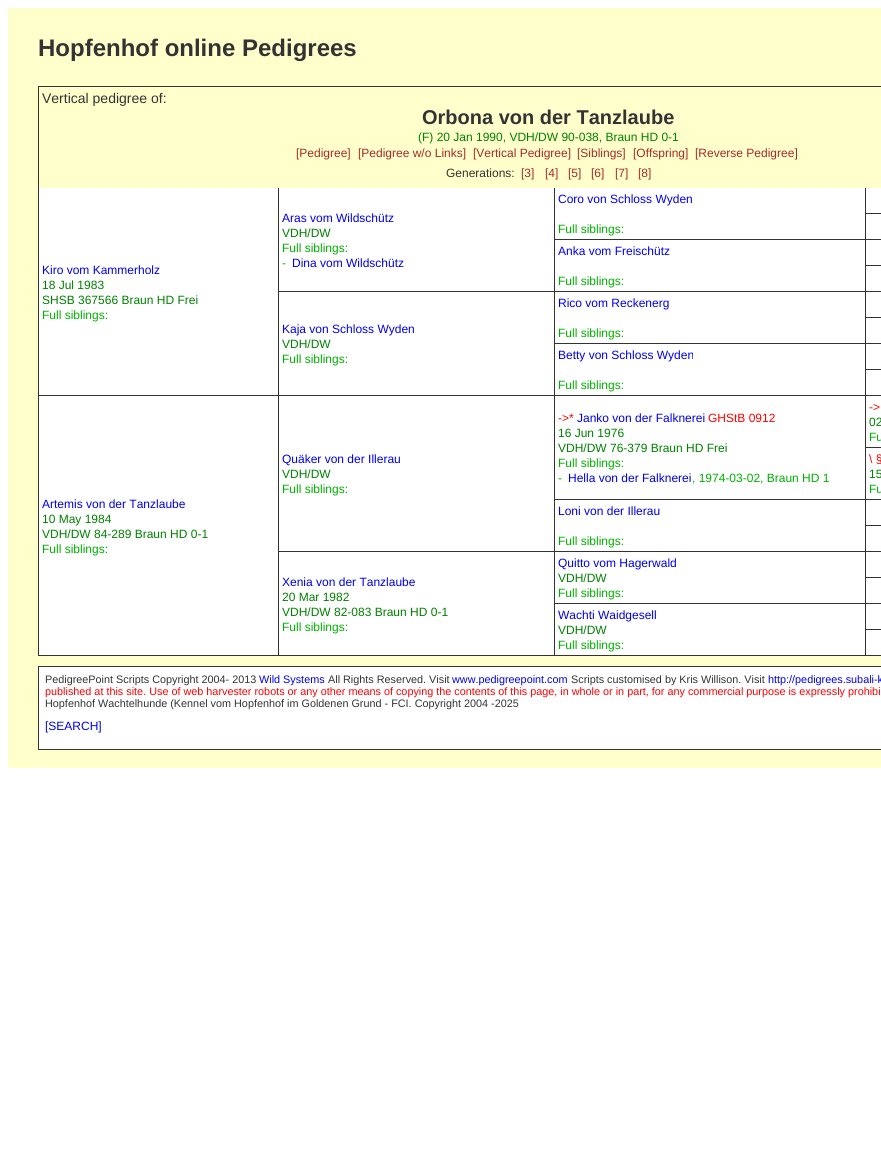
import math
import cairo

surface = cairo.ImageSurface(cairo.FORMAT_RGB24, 881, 1155)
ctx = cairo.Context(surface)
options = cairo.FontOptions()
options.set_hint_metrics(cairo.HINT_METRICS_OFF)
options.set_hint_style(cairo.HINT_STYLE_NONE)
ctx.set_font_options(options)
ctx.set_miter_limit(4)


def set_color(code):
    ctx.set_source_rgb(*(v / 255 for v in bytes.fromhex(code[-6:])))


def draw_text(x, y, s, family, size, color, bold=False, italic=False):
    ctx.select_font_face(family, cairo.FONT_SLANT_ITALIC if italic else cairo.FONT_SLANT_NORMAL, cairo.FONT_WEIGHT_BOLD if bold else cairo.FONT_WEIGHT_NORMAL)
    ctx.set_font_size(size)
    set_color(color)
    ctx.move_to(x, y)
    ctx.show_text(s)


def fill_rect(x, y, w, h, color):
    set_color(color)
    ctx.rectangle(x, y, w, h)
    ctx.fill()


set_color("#ffffff")
ctx.paint()
fill_rect(8, 8, 873, 760, "#ffffcc")
draw_text(38, 56, "Hopfenhof online Pedigrees", "Liberation Sans", 24, "#333333", bold=True)
fill_rect(39, 188, 842, 467, "#ffffff")
fill_rect(38, 86, 843, 1, "#333333")
fill_rect(38, 655, 843, 1, "#333333")
fill_rect(38, 86, 1, 570, "#333333")
fill_rect(865, 213, 16, 1, "#333333")
fill_rect(865, 239, 16, 1, "#333333")
fill_rect(865, 265, 16, 1, "#333333")
fill_rect(865, 291, 16, 1, "#333333")
fill_rect(865, 317, 16, 1, "#333333")
fill_rect(865, 343, 16, 1, "#333333")
fill_rect(865, 369, 16, 1, "#333333")
fill_rect(865, 395, 16, 1, "#333333")
fill_rect(865, 447, 16, 1, "#333333")
fill_rect(865, 499, 16, 1, "#333333")
fill_rect(865, 525, 16, 1, "#333333")
fill_rect(865, 551, 16, 1, "#333333")
fill_rect(865, 577, 16, 1, "#333333")
fill_rect(865, 603, 16, 1, "#333333")
fill_rect(865, 629, 16, 1, "#333333")
fill_rect(865, 629, 1, 27, "#333333")
fill_rect(865, 603, 1, 27, "#333333")
fill_rect(554, 603, 312, 1, "#333333")
fill_rect(865, 577, 1, 27, "#333333")
fill_rect(865, 551, 1, 27, "#333333")
fill_rect(554, 551, 312, 1, "#333333")
fill_rect(865, 525, 1, 27, "#333333")
fill_rect(865, 499, 1, 27, "#333333")
fill_rect(554, 499, 312, 1, "#333333")
fill_rect(865, 447, 1, 53, "#333333")
fill_rect(865, 395, 1, 53, "#333333")
fill_rect(554, 395, 312, 1, "#333333")
fill_rect(865, 369, 1, 27, "#333333")
fill_rect(865, 343, 1, 27, "#333333")
fill_rect(554, 343, 312, 1, "#333333")
fill_rect(865, 317, 1, 27, "#333333")
fill_rect(865, 291, 1, 27, "#333333")
fill_rect(554, 291, 312, 1, "#333333")
fill_rect(865, 265, 1, 27, "#333333")
fill_rect(865, 239, 1, 27, "#333333")
fill_rect(554, 239, 312, 1, "#333333")
fill_rect(865, 187, 1, 53, "#333333")
fill_rect(554, 603, 1, 53, "#333333")
fill_rect(554, 551, 1, 53, "#333333")
fill_rect(278, 551, 277, 1, "#333333")
fill_rect(554, 499, 1, 53, "#333333")
fill_rect(554, 395, 1, 105, "#333333")
fill_rect(278, 395, 277, 1, "#333333")
fill_rect(554, 343, 1, 53, "#333333")
fill_rect(554, 291, 1, 53, "#333333")
fill_rect(278, 291, 277, 1, "#333333")
fill_rect(554, 187, 1, 105, "#333333")
fill_rect(278, 551, 1, 105, "#333333")
fill_rect(278, 395, 1, 157, "#333333")
fill_rect(38, 395, 241, 1, "#333333")
fill_rect(278, 187, 1, 209, "#333333")
fill_rect(278, 187, 588, 1, "#ffffcc")
draw_text(42, 103, "Vertical pedigree of:", "Liberation Sans", 14, "#333333")
draw_text(422, 124, "Orbona von der Tanzlaube", "Liberation Sans", 20, "#333333", bold=True)
draw_text(418, 141, "(F) 20 Jan 1990, VDH/DW 90-038, Braun HD 0-1", "Liberation Sans", 12, "#008000")
draw_text(296, 157, "[Pedigree]", "Liberation Sans", 12, "#a52a2a")
draw_text(358, 157, "[Pedigree w/o Links]", "Liberation Sans", 12, "#a52a2a")
draw_text(473, 157, "[Vertical Pedigree]", "Liberation Sans", 12, "#a52a2a")
draw_text(577, 157, "[Siblings]", "Liberation Sans", 12, "#a52a2a")
draw_text(633, 157, "[Offspring]", "Liberation Sans", 12, "#a52a2a")
draw_text(695, 157, "[Reverse Pedigree]", "Liberation Sans", 12, "#a52a2a")
draw_text(446, 177, "Generations:", "Liberation Sans", 12, "#333333")
draw_text(521, 177, "[3]", "Liberation Sans", 12, "#a52a2a")
draw_text(545, 177, "[4]", "Liberation Sans", 12, "#a52a2a")
draw_text(568, 177, "[5]", "Liberation Sans", 12, "#a52a2a")
draw_text(591, 177, "[6]", "Liberation Sans", 12, "#a52a2a")
draw_text(615, 177, "[7]", "Liberation Sans", 12, "#a52a2a")
draw_text(638, 177, "[8]", "Liberation Sans", 12, "#a52a2a")
draw_text(282, 222, "Aras vom Wildschütz", "Liberation Sans", 12, "#0000ee")
draw_text(282, 237, "VDH/DW", "Liberation Sans", 12, "#008000")
draw_text(282, 252, "Full siblings:", "Liberation Sans", 12, "#00b000")
draw_text(282, 267, "-", "Liberation Sans", 12, "#00b000")
draw_text(292, 267, "Dina vom Wildschütz", "Liberation Sans", 12, "#0000ee")
draw_text(558, 203, "Coro von Schloss Wyden", "Liberation Sans", 12, "#0000ee")
draw_text(558, 233, "Full siblings:", "Liberation Sans", 12, "#00b000")
draw_text(42, 274, "Kiro vom Kammerholz", "Liberation Sans", 12, "#0000ee")
draw_text(42, 289, "18 Jul 1983", "Liberation Sans", 12, "#008000")
draw_text(42, 304, "SHSB 367566 Braun HD Frei", "Liberation Sans", 12, "#008000")
draw_text(42, 319, "Full siblings:", "Liberation Sans", 12, "#00b000")
draw_text(558, 255, "Anka vom Freischütz", "Liberation Sans", 12, "#0000ee")
draw_text(558, 285, "Full siblings:", "Liberation Sans", 12, "#00b000")
draw_text(558, 307, "Rico vom Reckenerg", "Liberation Sans", 12, "#0000ee")
draw_text(558, 337, "Full siblings:", "Liberation Sans", 12, "#00b000")
draw_text(282, 333, "Kaja von Schloss Wyden", "Liberation Sans", 12, "#0000ee")
draw_text(282, 348, "VDH/DW", "Liberation Sans", 12, "#008000")
draw_text(282, 363, "Full siblings:", "Liberation Sans", 12, "#00b000")
draw_text(558, 359, "Betty von Schloss Wyden", "Liberation Sans", 12, "#0000ee")
draw_text(558, 389, "Full siblings:", "Liberation Sans", 12, "#00b000")
draw_text(282, 463, "Quäker von der Illerau", "Liberation Sans", 12, "#0000ee")
draw_text(282, 478, "VDH/DW", "Liberation Sans", 12, "#008000")
draw_text(282, 493, "Full siblings:", "Liberation Sans", 12, "#00b000")
draw_text(558, 422, "->*", "Liberation Sans", 12, "#ff0000")
draw_text(577, 422, "Janko von der Falknerei", "Liberation Sans", 12, "#0000ee")
draw_text(708, 422, "GHStB 0912", "Liberation Sans", 12, "#ff0000")
draw_text(558, 437, "16 Jun 1976", "Liberation Sans", 12, "#008000")
draw_text(558, 452, "VDH/DW 76-379 Braun HD Frei", "Liberation Sans", 12, "#008000")
draw_text(558, 467, "Full siblings:", "Liberation Sans", 12, "#00b000")
draw_text(558, 482, "-", "Liberation Sans", 12, "#00b000")
draw_text(568, 482, "Hella von der Falknerei", "Liberation Sans", 12, "#0000ee")
draw_text(692, 482, ", 1974-03-02, Braun HD 1", "Liberation Sans", 12, "#00b000")
draw_text(869, 411, "->", "Liberation Sans", 12, "#ff0000")
draw_text(869, 426, "02", "Liberation Sans", 12, "#008000")
draw_text(869, 441, "Fu", "Liberation Sans", 12, "#00b000")
draw_text(42, 508, "Artemis von der Tanzlaube", "Liberation Sans", 12, "#0000ee")
draw_text(42, 523, "10 May 1984", "Liberation Sans", 12, "#008000")
draw_text(42, 538, "VDH/DW 84-289 Braun HD 0-1", "Liberation Sans", 12, "#008000")
draw_text(42, 553, "Full siblings:", "Liberation Sans", 12, "#00b000")
draw_text(869, 463, "\\ §", "Liberation Sans", 12, "#ff0000")
draw_text(869, 478, "15", "Liberation Sans", 12, "#008000")
draw_text(869, 493, "Fu", "Liberation Sans", 12, "#00b000")
draw_text(558, 515, "Loni von der Illerau", "Liberation Sans", 12, "#0000ee")
draw_text(558, 545, "Full siblings:", "Liberation Sans", 12, "#00b000")
draw_text(282, 586, "Xenia von der Tanzlaube", "Liberation Sans", 12, "#0000ee")
draw_text(282, 601, "20 Mar 1982", "Liberation Sans", 12, "#008000")
draw_text(282, 616, "VDH/DW 82-083 Braun HD 0-1", "Liberation Sans", 12, "#008000")
draw_text(282, 631, "Full siblings:", "Liberation Sans", 12, "#00b000")
draw_text(558, 567, "Quitto vom Hagerwald", "Liberation Sans", 12, "#0000ee")
draw_text(558, 582, "VDH/DW", "Liberation Sans", 12, "#008000")
draw_text(558, 597, "Full siblings:", "Liberation Sans", 12, "#00b000")
draw_text(558, 619, "Wachti Waidgesell", "Liberation Sans", 12, "#0000ee")
draw_text(558, 634, "VDH/DW", "Liberation Sans", 12, "#008000")
draw_text(558, 649, "Full siblings:", "Liberation Sans", 12, "#00b000")
set_color("#ffffff")
ctx.rectangle(38.5, 666.5, 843, 83)
ctx.fill_preserve()
set_color("#333333")
ctx.set_line_width(1)
ctx.stroke()
draw_text(45, 683, "PedigreePoint Scripts Copyright 2004- 2013", "Liberation Sans", 10.83, "#333333")
draw_text(259, 683, "Wild Systems", "Liberation Sans", 10.83, "#0000ee")
draw_text(328, 683, "All Rights Reserved. Visit", "Liberation Sans", 10.83, "#333333")
draw_text(452, 683, "www.pedigreepoint.com", "Liberation Sans", 10.83, "#0000ee")
draw_text(571, 683, "Scripts customised by Kris Willison. Visit", "Liberation Sans", 10.83, "#333333")
draw_text(768, 683, "http://pedigrees.subali-k", "Liberation Sans", 10.83, "#0000ee")
draw_text(45, 695, "published at this site. Use of web harvester robots or any other means of copying the contents of this page, in whole or in part, for any commercial purpose is expressly prohibi", "Liberation Sans", 10.83, "#ff0000")
draw_text(45, 707, "Hopfenhof Wachtelhunde (Kennel vom Hopfenhof im Goldenen Grund - FCI. Copyright 2004 -2025", "Liberation Sans", 10.83, "#333333")
draw_text(45, 730, "[SEARCH]", "Liberation Sans", 12, "#0000ee")
surface.write_to_png("output.png")
